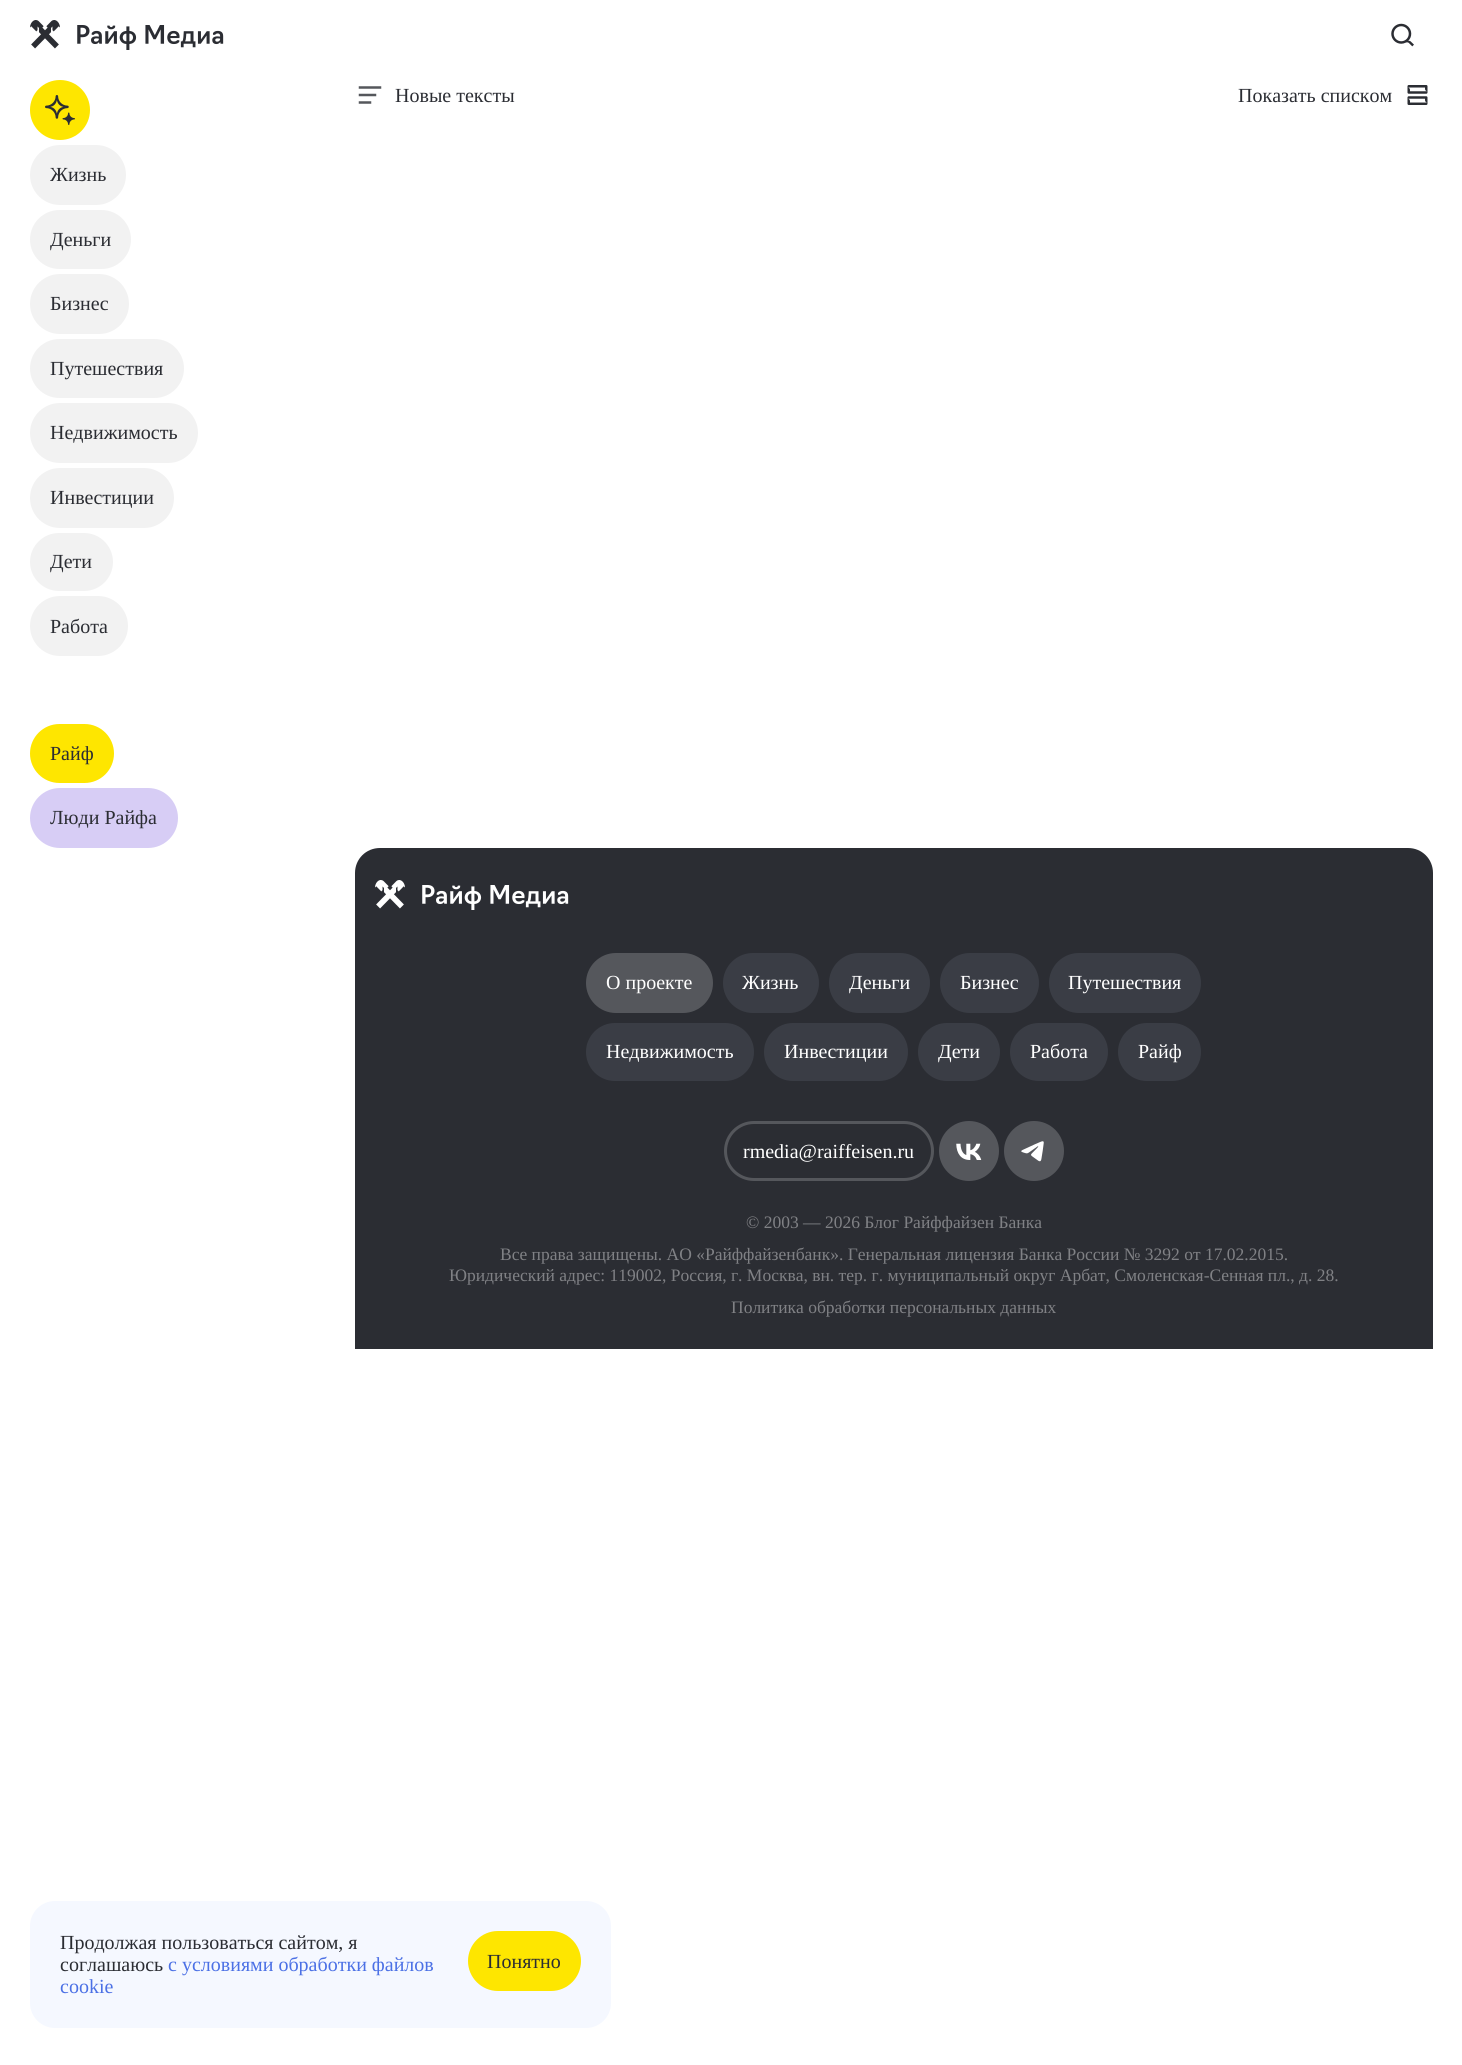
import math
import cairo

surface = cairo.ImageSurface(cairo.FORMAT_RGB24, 1462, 2065)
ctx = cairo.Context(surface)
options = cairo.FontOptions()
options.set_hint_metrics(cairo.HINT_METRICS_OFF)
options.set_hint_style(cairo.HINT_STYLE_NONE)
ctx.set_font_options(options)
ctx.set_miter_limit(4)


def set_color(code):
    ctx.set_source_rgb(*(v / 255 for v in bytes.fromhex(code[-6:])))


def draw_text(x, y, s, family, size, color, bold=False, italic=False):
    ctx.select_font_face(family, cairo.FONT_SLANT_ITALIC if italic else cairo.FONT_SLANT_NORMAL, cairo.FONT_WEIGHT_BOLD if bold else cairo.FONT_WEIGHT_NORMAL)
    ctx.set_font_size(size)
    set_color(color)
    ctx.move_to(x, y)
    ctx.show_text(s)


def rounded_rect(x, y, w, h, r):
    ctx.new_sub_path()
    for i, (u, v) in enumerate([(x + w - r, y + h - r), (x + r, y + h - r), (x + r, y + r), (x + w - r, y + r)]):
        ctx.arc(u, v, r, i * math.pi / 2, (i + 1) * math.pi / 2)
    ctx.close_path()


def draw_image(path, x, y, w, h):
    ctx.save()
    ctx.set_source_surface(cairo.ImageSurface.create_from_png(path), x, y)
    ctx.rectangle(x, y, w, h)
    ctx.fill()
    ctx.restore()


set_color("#ffffff")
ctx.paint()
draw_image("assets/img1.png", 30, 20, 194, 30)
draw_image("assets/img2.png", 1391, 23, 23, 24)
draw_image("assets/img3.png", 358, 86, 24, 18)
draw_text(395, 102, "Новые тексты", "Liberation Serif", 20, "#2b2d33")
draw_text(1238, 102, "Показать списком", "Liberation Serif", 20, "#2b2d33")
draw_image("assets/img4.png", 1407, 85, 21, 20)
set_color("#fee600")
ctx.arc(60, 110, 30, 0, 2 * math.pi)
ctx.fill()
draw_image("assets/img5.png", 45, 95, 30, 30)
set_color("#f2f2f2")
rounded_rect(30, 145, 96, 60, 30)
ctx.fill()
draw_text(50, 181, "Жизнь", "Liberation Serif", 20, "#2b2d33")
set_color("#f2f2f2")
rounded_rect(30, 210, 101, 59, 29.5)
ctx.fill()
draw_text(50, 246, "Деньги", "Liberation Serif", 20, "#2b2d33")
set_color("#f2f2f2")
rounded_rect(30, 274, 99, 60, 30)
ctx.fill()
draw_text(50, 310, "Бизнес", "Liberation Serif", 20, "#2b2d33")
set_color("#f2f2f2")
rounded_rect(30, 339, 154, 59, 29.5)
ctx.fill()
draw_text(50, 375, "Путешествия", "Liberation Serif", 20, "#2b2d33")
set_color("#f2f2f2")
rounded_rect(30, 403, 168, 60, 30)
ctx.fill()
draw_text(50, 439, "Недвижимость", "Liberation Serif", 20, "#2b2d33")
set_color("#f2f2f2")
rounded_rect(30, 468, 144, 60, 30)
ctx.fill()
draw_text(50, 504, "Инвестиции", "Liberation Serif", 20, "#2b2d33")
set_color("#f2f2f2")
rounded_rect(30, 533, 83, 58, 29)
ctx.fill()
draw_text(50, 568, "Дети", "Liberation Serif", 20, "#2b2d33")
set_color("#f2f2f2")
rounded_rect(30, 596, 98, 60, 30)
ctx.fill()
draw_text(50, 633, "Работа", "Liberation Serif", 20, "#2b2d33")
set_color("#fee600")
rounded_rect(30, 724, 84, 59, 29.5)
ctx.fill()
draw_text(50, 760, "Райф", "Liberation Serif", 20, "#2b2d33")
set_color("#d7cdf5")
rounded_rect(30, 788, 148, 60, 30)
ctx.fill()
draw_text(50, 824, "Люди Райфа", "Liberation Serif", 20, "#2b2d33")
ctx.new_path()
ctx.move_to(380, 848)
ctx.line_to(1408, 848)
ctx.curve_to(1422, 848, 1433, 859, 1433, 873)
ctx.line_to(1433, 1349)
ctx.line_to(355, 1349)
ctx.line_to(355, 873)
ctx.curve_to(355, 859, 366, 848, 380, 848)
ctx.close_path()
ctx.fill()
draw_image("assets/img6.png", 375, 880, 194, 30)
set_color("#55575c")
rounded_rect(586, 953, 127, 60, 30)
ctx.fill()
draw_text(606, 989, "О проекте", "Liberation Serif", 20, "#ffffff")
set_color("#3a3d45")
rounded_rect(723, 953, 96, 60, 30)
ctx.fill()
draw_text(742, 989, "Жизнь", "Liberation Serif", 20, "#ffffff")
set_color("#3a3d45")
rounded_rect(829, 953, 101, 60, 30)
ctx.fill()
draw_text(849, 989, "Деньги", "Liberation Serif", 20, "#ffffff")
set_color("#3a3d45")
rounded_rect(940, 953, 99, 60, 30)
ctx.fill()
draw_text(960, 989, "Бизнес", "Liberation Serif", 20, "#ffffff")
set_color("#3a3d45")
rounded_rect(1049, 953, 152, 60, 30)
ctx.fill()
draw_text(1068, 989, "Путешествия", "Liberation Serif", 20, "#ffffff")
set_color("#3a3d45")
rounded_rect(586, 1023, 168, 58, 29)
ctx.fill()
draw_text(606, 1058, "Недвижимость", "Liberation Serif", 20, "#ffffff")
set_color("#3a3d45")
rounded_rect(764, 1023, 144, 58, 29)
ctx.fill()
draw_text(784, 1058, "Инвестиции", "Liberation Serif", 20, "#ffffff")
set_color("#3a3d45")
rounded_rect(918, 1023, 82, 58, 29)
ctx.fill()
draw_text(938, 1058, "Дети", "Liberation Serif", 20, "#ffffff")
set_color("#3a3d45")
rounded_rect(1010, 1023, 98, 58, 29)
ctx.fill()
draw_text(1030, 1058, "Работа", "Liberation Serif", 20, "#ffffff")
set_color("#3a3d45")
rounded_rect(1118, 1023, 83, 58, 29)
ctx.fill()
draw_text(1138, 1058, "Райф", "Liberation Serif", 20, "#ffffff")
rounded_rect(725.5, 1122.5, 207, 57, 28.5)
set_color("#55575c")
ctx.set_line_width(3)
ctx.stroke()
draw_text(743, 1158, "rmedia@raiffeisen.ru", "Liberation Serif", 20, "#ffffff")
set_color("#55575c")
ctx.new_path()
ctx.arc(969, 1151, 30, 0, 2 * math.pi)
ctx.fill()
draw_image("assets/img7.png", 956, 1143, 26, 17)
ctx.arc(1034, 1151, 30, 0, 2 * math.pi)
ctx.fill()
draw_image("assets/img8.png", 1021, 1141, 23, 21)
draw_text(746, 1228, "© 2003 — 2026 Блог Райффайзен Банка", "Liberation Serif", 17.5, "#808185")
draw_text(500, 1260, "Все права защищены. АО «Райффайзенбанк». Генеральная лицензия Банка России № 3292 от 17.02.2015.", "Liberation Serif", 17.5, "#808185")
draw_text(449, 1281, "Юридический адрес: 119002, Россия, г. Москва, вн. тер. г. муниципальный округ Арбат, Смоленская-Сенная пл., д. 28.", "Liberation Serif", 17.5, "#808185")
draw_text(731, 1313, "Политика обработки персональных данных", "Liberation Serif", 17.5, "#808185")
set_color("#f5f8ff")
rounded_rect(30, 1901, 581, 127, 25)
ctx.fill()
draw_text(60, 1949, "Продолжая пользоваться сайтом, я", "Liberation Serif", 20, "#2b2d33")
draw_text(60, 1971, "соглашаюсь", "Liberation Serif", 20, "#2b2d33")
draw_text(168, 1971, "с условиями обработки файлов", "Liberation Serif", 20, "#4b70e5")
draw_text(60, 1993, "cookie", "Liberation Serif", 20, "#4b70e5")
set_color("#fee600")
rounded_rect(468, 1931, 113, 60, 30)
ctx.fill()
draw_text(487, 1968, "Понятно", "Liberation Serif", 20, "#2b2d33")
surface.write_to_png("output.png")
